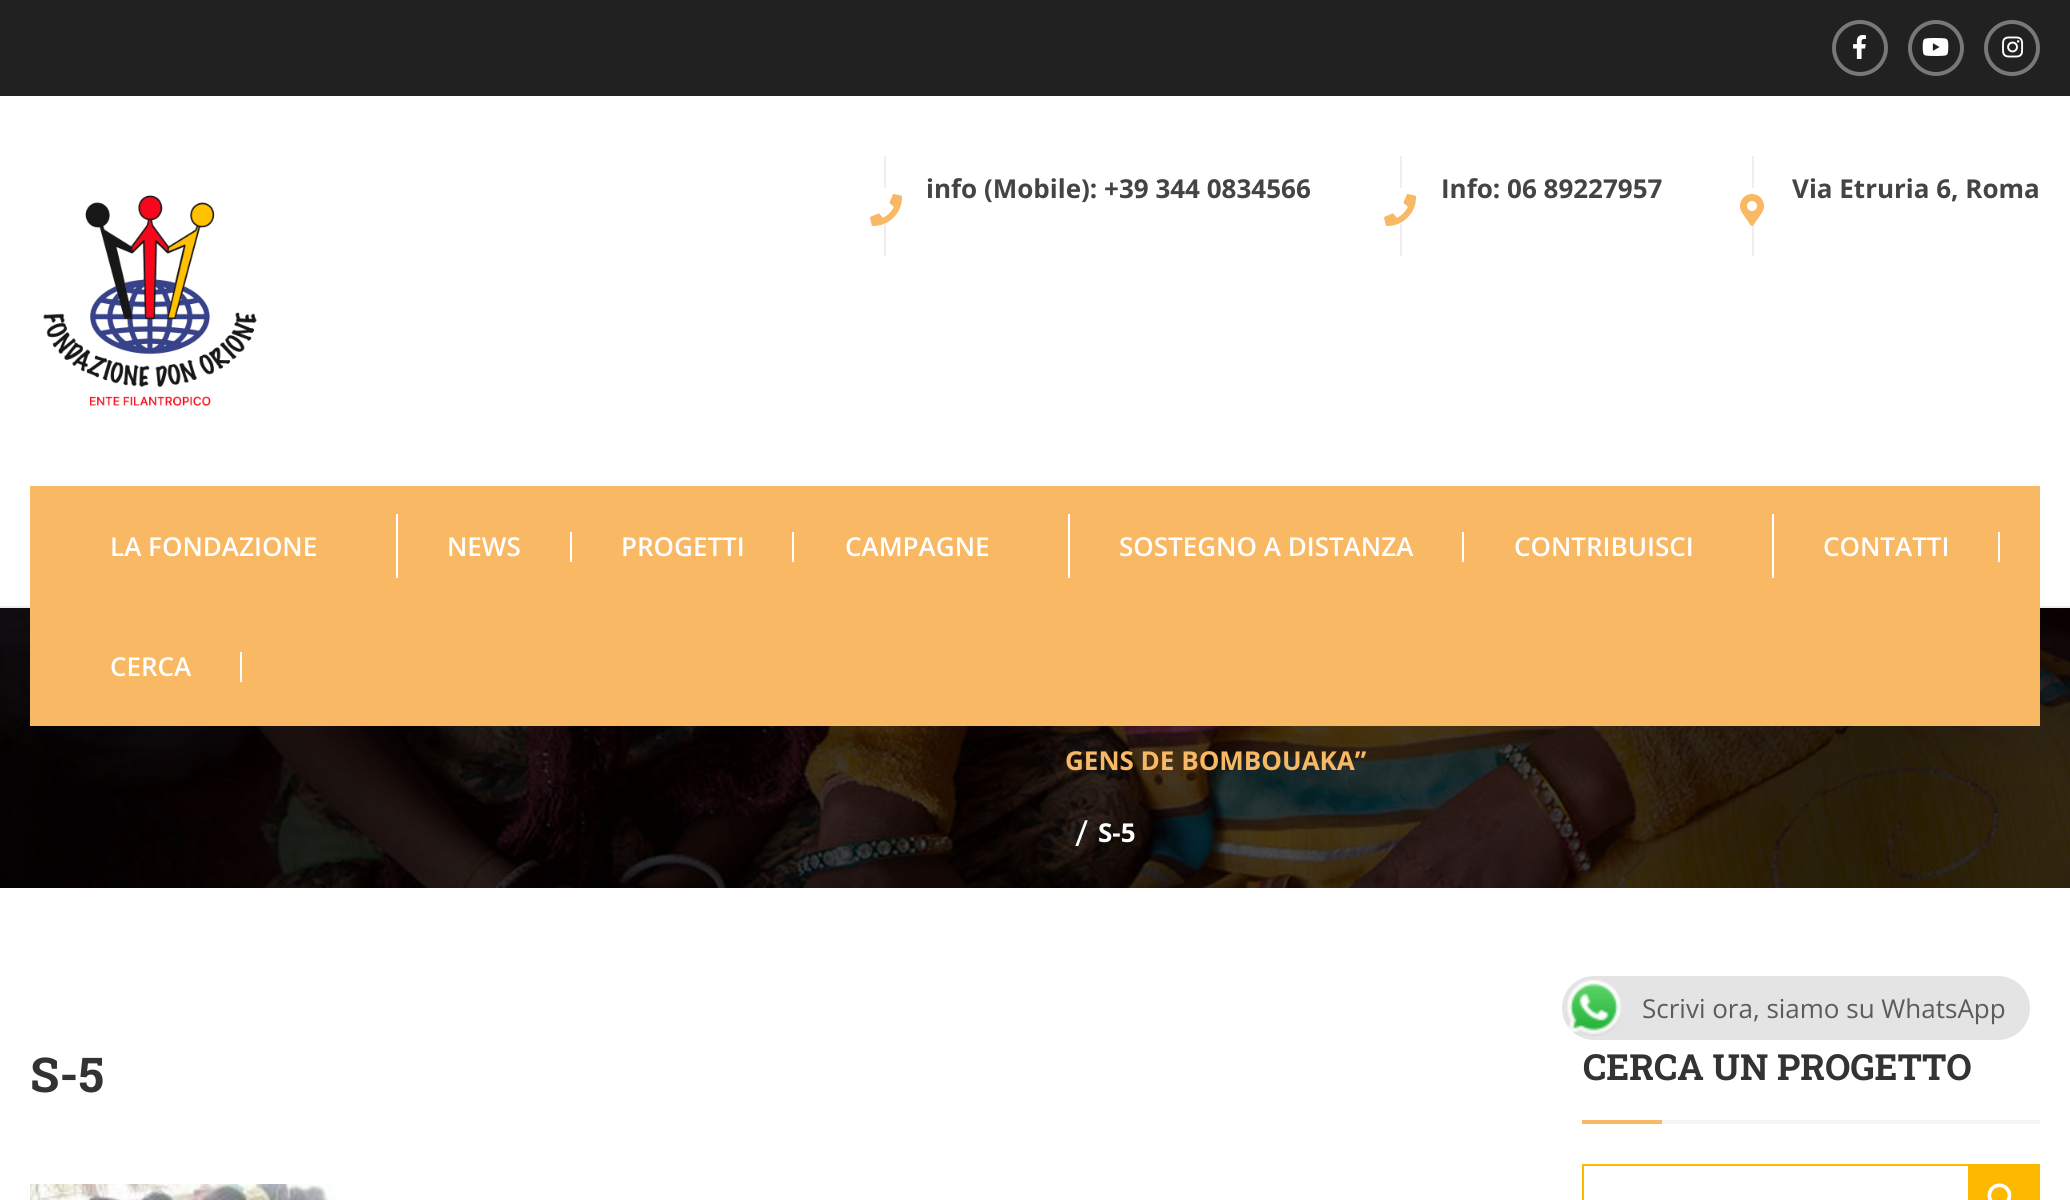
import math
import cairo

surface = cairo.ImageSurface(cairo.FORMAT_RGB24, 2070, 1200)
ctx = cairo.Context(surface)
options = cairo.FontOptions()
options.set_hint_metrics(cairo.HINT_METRICS_OFF)
options.set_hint_style(cairo.HINT_STYLE_NONE)
ctx.set_font_options(options)
ctx.set_miter_limit(4)


def set_color(code):
    ctx.set_source_rgb(*(v / 255 for v in bytes.fromhex(code[-6:])))


def draw_text(x, y, s, family, size, color, bold=False, italic=False):
    ctx.select_font_face(family, cairo.FONT_SLANT_ITALIC if italic else cairo.FONT_SLANT_NORMAL, cairo.FONT_WEIGHT_BOLD if bold else cairo.FONT_WEIGHT_NORMAL)
    ctx.set_font_size(size)
    set_color(color)
    ctx.move_to(x, y)
    ctx.show_text(s)


def fill_rect(x, y, w, h, color):
    set_color(color)
    ctx.rectangle(x, y, w, h)
    ctx.fill()


def rounded_rect(x, y, w, h, r):
    ctx.new_sub_path()
    for i, (u, v) in enumerate([(x + w - r, y + h - r), (x + r, y + h - r), (x + r, y + r), (x + w - r, y + r)]):
        ctx.arc(u, v, r, i * math.pi / 2, (i + 1) * math.pi / 2)
    ctx.close_path()


def draw_image(path, x, y, w, h):
    ctx.save()
    ctx.set_source_surface(cairo.ImageSurface.create_from_png(path), x, y)
    ctx.rectangle(x, y, w, h)
    ctx.fill()
    ctx.restore()


set_color("#212121")
ctx.paint()
ctx.arc(1860, 48, 26, 0, 2 * math.pi)
set_color("#787878")
ctx.set_line_width(4)
ctx.stroke()
draw_image("assets/img1.png", 1853, 35, 13, 24)
ctx.arc(1936, 48, 26, 0, 2 * math.pi)
ctx.stroke()
draw_image("assets/img2.png", 1922, 38, 27, 18)
ctx.arc(2012, 48, 26, 0, 2 * math.pi)
ctx.stroke()
draw_image("assets/img3.png", 2002, 36, 22, 22)
fill_rect(0, 606, 2070, 2, "#eeeeee")
fill_rect(0, 96, 2070, 510, "#ffffff")
fill_rect(884, 156, 2, 100, "#eeeeee")
fill_rect(884, 188, 2, 36, "#ffffff")
draw_image("assets/img4.png", 870, 194, 33, 32)
draw_text(926, 198, "info (Mobile): +39 344 0834566", "Open Sans", 26, "#444444", bold=True)
fill_rect(1400, 156, 2, 100, "#eeeeee")
fill_rect(1400, 188, 2, 36, "#ffffff")
draw_image("assets/img5.png", 1384, 194, 33, 32)
draw_text(1441, 198, "Info: 06 89227957", "Open Sans", 26, "#444444", bold=True)
fill_rect(1752, 156, 2, 100, "#eeeeee")
fill_rect(1752, 188, 2, 36, "#ffffff")
draw_image("assets/img6.png", 1740, 194, 24, 32)
draw_text(1792, 198, "Via Etruria 6, Roma", "Open Sans", 26, "#444444", bold=True)
draw_image("assets/img7.png", 43, 195, 214, 211)
draw_image("assets/img8.png", 0, 608, 2070, 280)
fill_rect(30, 486, 2010, 240, "#f8b864")
draw_text(110, 556, "LA FONDAZIONE", "Open Sans SemiBold", 26, "#ffffff")
fill_rect(396, 514, 2, 64, "#ffffff")
draw_text(447, 556, "NEWS", "Open Sans SemiBold", 26, "#ffffff")
fill_rect(570, 532, 2, 30, "#ffffff")
draw_text(621, 556, "PROGETTI", "Open Sans SemiBold", 26, "#ffffff")
fill_rect(792, 532, 2, 30, "#ffffff")
draw_text(845, 556, "CAMPAGNE", "Open Sans SemiBold", 26, "#ffffff")
fill_rect(1068, 514, 2, 64, "#ffffff")
draw_text(1119, 556, "SOSTEGNO A DISTANZA", "Open Sans SemiBold", 26, "#ffffff")
fill_rect(1462, 532, 2, 30, "#ffffff")
draw_text(1514, 556, "CONTRIBUISCI", "Open Sans SemiBold", 26, "#ffffff")
fill_rect(1772, 514, 2, 64, "#ffffff")
draw_text(1823, 556, "CONTATTI", "Open Sans SemiBold", 26, "#ffffff")
fill_rect(1998, 532, 2, 30, "#ffffff")
draw_text(110, 676, "CERCA", "Open Sans SemiBold", 26, "#ffffff")
fill_rect(240, 652, 2, 30, "#ffffff")
fill_rect(0, 888, 2070, 312, "#ffffff")
draw_text(1065, 770, "GENS DE BOMBOUAKA”", "Open Sans", 26, "#f8b864", bold=True)
draw_text(1075, 846, "/", "Open Sans", 36, "#ffffff")
draw_text(1098, 842, "S-5", "Open Sans", 26, "#ffffff", bold=True)
draw_text(30, 1092, "S-5", "Roboto Slab", 48, "#333333", bold=True)
draw_image("assets/img9.png", 30, 1184, 314, 16)
draw_text(1583, 1080, "CERCA UN PROGETTO", "Roboto Slab", 36, "#333333", bold=True)
fill_rect(1582, 1120, 80, 4, "#f8b864")
fill_rect(1662, 1120, 378, 4, "#f5f5f5")
fill_rect(1582, 1164, 386, 2, "#fcb900")
fill_rect(1582, 1164, 2, 36, "#fcb900")
fill_rect(1968, 1164, 72, 36, "#fcb900")
draw_image("assets/img10.png", 1987, 1183, 25, 17)
set_color("#e4e4e4")
rounded_rect(1562, 976, 468, 64, 32)
ctx.fill()
draw_image("assets/img11.png", 1566, 979, 56, 57)
draw_text(1642, 1018, "Scrivi ora, siamo su WhatsApp", "Open Sans", 26, "#5b5b5b")
surface.write_to_png("output.png")
